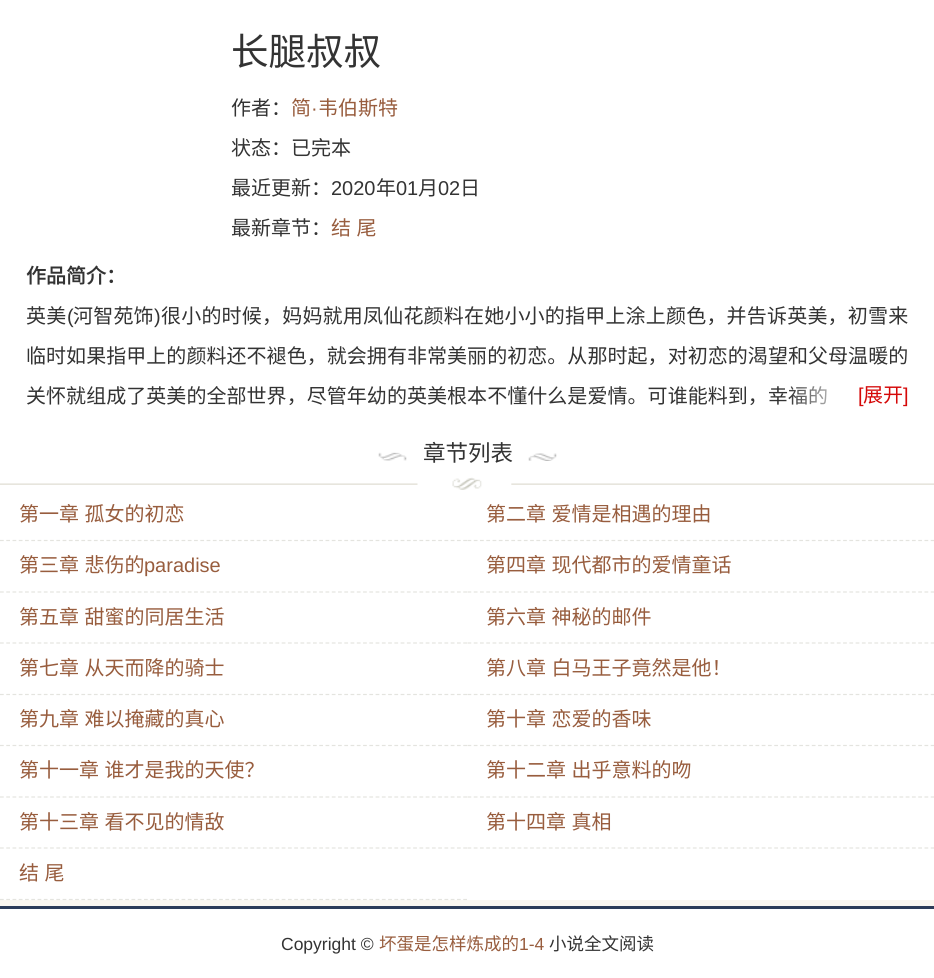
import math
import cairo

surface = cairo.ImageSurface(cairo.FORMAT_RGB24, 934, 978)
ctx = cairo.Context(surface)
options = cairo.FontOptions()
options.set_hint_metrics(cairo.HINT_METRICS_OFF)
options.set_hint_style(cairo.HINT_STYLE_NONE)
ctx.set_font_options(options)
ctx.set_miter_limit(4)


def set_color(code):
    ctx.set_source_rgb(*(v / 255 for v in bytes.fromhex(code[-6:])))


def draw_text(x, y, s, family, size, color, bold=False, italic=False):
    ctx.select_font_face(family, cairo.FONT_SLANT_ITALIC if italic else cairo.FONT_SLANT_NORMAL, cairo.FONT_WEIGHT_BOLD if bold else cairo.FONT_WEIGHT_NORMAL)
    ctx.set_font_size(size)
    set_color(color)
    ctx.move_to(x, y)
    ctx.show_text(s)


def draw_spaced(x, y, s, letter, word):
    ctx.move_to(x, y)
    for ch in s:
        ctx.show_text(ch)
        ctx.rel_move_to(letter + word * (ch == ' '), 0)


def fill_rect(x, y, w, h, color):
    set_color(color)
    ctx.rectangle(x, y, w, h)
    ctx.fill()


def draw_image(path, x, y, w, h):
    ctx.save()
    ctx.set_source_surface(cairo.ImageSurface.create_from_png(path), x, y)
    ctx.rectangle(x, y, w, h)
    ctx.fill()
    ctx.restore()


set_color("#fbf7f0")
ctx.paint()
fill_rect(0, 0, 934, 900, "#ffffff")
draw_text(231, 65, "长腿叔叔", "Noto Sans CJK SC", 37.5, "#333333")
draw_text(231, 115, "作者：", "Noto Sans CJK SC", 20, "#333333")
draw_text(291, 115, "简", "Noto Sans CJK SC", 20, "#985d3e")
draw_text(311, 115, "·", "Liberation Sans", 20, "#985d3e")
draw_text(318, 115, "韦伯斯特", "Noto Sans CJK SC", 20, "#985d3e")
draw_text(231, 155, "状态：已完本", "Noto Sans CJK SC", 20, "#333333")
draw_text(231, 195, "最近更新：", "Noto Sans CJK SC", 20, "#333333")
draw_text(331, 195, "2020", "Liberation Sans", 20, "#333333")
draw_text(376, 195, "年", "Noto Sans CJK SC", 20, "#333333")
draw_text(396, 195, "01", "Liberation Sans", 20, "#333333")
draw_text(418, 195, "月", "Noto Sans CJK SC", 20, "#333333")
draw_text(438, 195, "02", "Liberation Sans", 20, "#333333")
draw_text(460, 195, "日", "Noto Sans CJK SC", 20, "#333333")
draw_text(231, 235, "最新章节：", "Noto Sans CJK SC", 20, "#333333")
set_color("#985d3e")
draw_spaced(331, 235, "结 尾", 0, 1)
draw_text(26, 283, "作品简介：", "Noto Sans CJK SC", 20, "#333333", bold=True)
ctx.select_font_face("Noto Sans CJK SC")
draw_spaced(26, 323, "英美", 0.2, 0)
ctx.select_font_face("Liberation Sans")
draw_spaced(67, 323, "(", 0.2, 0)
ctx.select_font_face("Noto Sans CJK SC")
draw_spaced(73, 323, "河智苑饰", 0.2, 0)
ctx.select_font_face("Liberation Sans")
draw_spaced(154, 323, ")", 0.2, 0)
ctx.select_font_face("Noto Sans CJK SC")
draw_spaced(161, 323, "很小的时候，妈妈就用凤仙花颜料在她小小的指甲上涂上颜色，并告诉英美，初雪来", 0.2, 0)
draw_spaced(26, 363, "临时如果指甲上的颜料还不褪色，就会拥有非常美丽的初恋。从那时起，对初恋的渴望和父母温暖的", 0.05, 0)
draw_spaced(26, 403, "关怀就组成了英美的全部世界，尽管年幼的英美根本不懂什么是爱情。可谁能料到，幸福的", 0.05, 0)
draw_image("assets/img1.png", 790, 386, 68, 19)
draw_text(858, 402, "[", "Liberation Sans", 20, "#d50808")
draw_text(863, 402, "展开", "Noto Sans CJK SC", 20, "#d50808")
draw_text(903, 402, "]", "Liberation Sans", 20, "#d50808")
draw_image("assets/img2.png", 0, 477, 934, 13)
draw_image("assets/img3.png", 378, 452, 29, 9)
draw_text(423, 461, "章节列表", "Noto Sans CJK SC", 22.5, "#333333")
draw_image("assets/img4.png", 528, 453, 29, 8)
ctx.new_path()
ctx.move_to(0, 540.5)
ctx.line_to(467.5, 540.5)
set_color("#e4e4df")
ctx.set_line_width(1.2)
ctx.set_dash([3.75, 2.51])
ctx.stroke()
ctx.set_font_size(20)
set_color("#985d3e")
draw_spaced(19, 521, "第一章 孤女的初恋", 0, 1)
ctx.new_path()
ctx.move_to(467.5, 540.5)
ctx.line_to(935, 540.5)
set_color("#e4e4df")
ctx.stroke()
set_color("#985d3e")
draw_spaced(486, 521, "第二章 爱情是相遇的理由", 0, 1)
ctx.new_path()
ctx.move_to(0, 592)
ctx.line_to(467.5, 592)
set_color("#e4e4df")
ctx.stroke()
set_color("#985d3e")
draw_spaced(19, 572, "第三章 悲伤的", 0, 1)
draw_text(144, 572, "paradise", "Liberation Sans", 20, "#985d3e")
ctx.new_path()
ctx.move_to(467.5, 592)
ctx.line_to(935, 592)
set_color("#e4e4df")
ctx.stroke()
ctx.select_font_face("Noto Sans CJK SC")
set_color("#985d3e")
draw_spaced(486, 572, "第四章 现代都市的爱情童话", 0, 1)
ctx.new_path()
ctx.move_to(0, 643)
ctx.line_to(467.5, 643)
set_color("#e4e4df")
ctx.stroke()
set_color("#985d3e")
draw_spaced(19, 624, "第五章 甜蜜的同居生活", 0, 1)
ctx.new_path()
ctx.move_to(467.5, 643)
ctx.line_to(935, 643)
set_color("#e4e4df")
ctx.stroke()
set_color("#985d3e")
draw_spaced(486, 624, "第六章 神秘的邮件", 0, 1)
ctx.new_path()
ctx.move_to(0, 694.5)
ctx.line_to(467.5, 694.5)
set_color("#e4e4df")
ctx.stroke()
set_color("#985d3e")
draw_spaced(19, 675, "第七章 从天而降的骑士", 0, 1)
ctx.new_path()
ctx.move_to(467.5, 694.5)
ctx.line_to(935, 694.5)
set_color("#e4e4df")
ctx.stroke()
set_color("#985d3e")
draw_spaced(486, 675, "第八章 白马王子竟然是他！", 0, 1)
ctx.new_path()
ctx.move_to(0, 745.5)
ctx.line_to(467.5, 745.5)
set_color("#e4e4df")
ctx.stroke()
set_color("#985d3e")
draw_spaced(19, 726, "第九章 难以掩藏的真心", 0, 1)
ctx.new_path()
ctx.move_to(467.5, 745.5)
ctx.line_to(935, 745.5)
set_color("#e4e4df")
ctx.stroke()
set_color("#985d3e")
draw_spaced(486, 726, "第十章 恋爱的香味", 0, 1)
ctx.new_path()
ctx.move_to(0, 797)
ctx.line_to(467.5, 797)
set_color("#e4e4df")
ctx.stroke()
set_color("#985d3e")
draw_spaced(19, 777, "第十一章 谁才是我的天使？", 0, 1)
ctx.new_path()
ctx.move_to(467.5, 797)
ctx.line_to(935, 797)
set_color("#e4e4df")
ctx.stroke()
set_color("#985d3e")
draw_spaced(486, 777, "第十二章 出乎意料的吻", 0, 1)
ctx.new_path()
ctx.move_to(0, 848)
ctx.line_to(467.5, 848)
set_color("#e4e4df")
ctx.stroke()
set_color("#985d3e")
draw_spaced(19, 829, "第十三章 看不见的情敌", 0, 1)
ctx.new_path()
ctx.move_to(467.5, 848)
ctx.line_to(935, 848)
set_color("#e4e4df")
ctx.stroke()
set_color("#985d3e")
draw_spaced(486, 829, "第十四章 真相", 0, 1)
ctx.new_path()
ctx.move_to(0, 899.5)
ctx.line_to(467.5, 899.5)
set_color("#e4e4df")
ctx.stroke()
set_color("#985d3e")
draw_spaced(19, 880, "结 尾", 0, 1)
fill_rect(0, 909, 934, 69, "#ffffff")
fill_rect(0, 906, 934, 3, "#2d3c59")
draw_text(281, 950, "Copyright ©", "Liberation Sans", 17.5, "#333333")
draw_text(379, 950, "坏蛋是怎样炼成的", "Noto Sans CJK SC", 17.5, "#985d3e")
draw_text(519, 950, "1-4", "Liberation Sans", 17.5, "#985d3e")
draw_text(549, 950, "小说全文阅读", "Noto Sans CJK SC", 17.5, "#333333")
surface.write_to_png("output.png")
